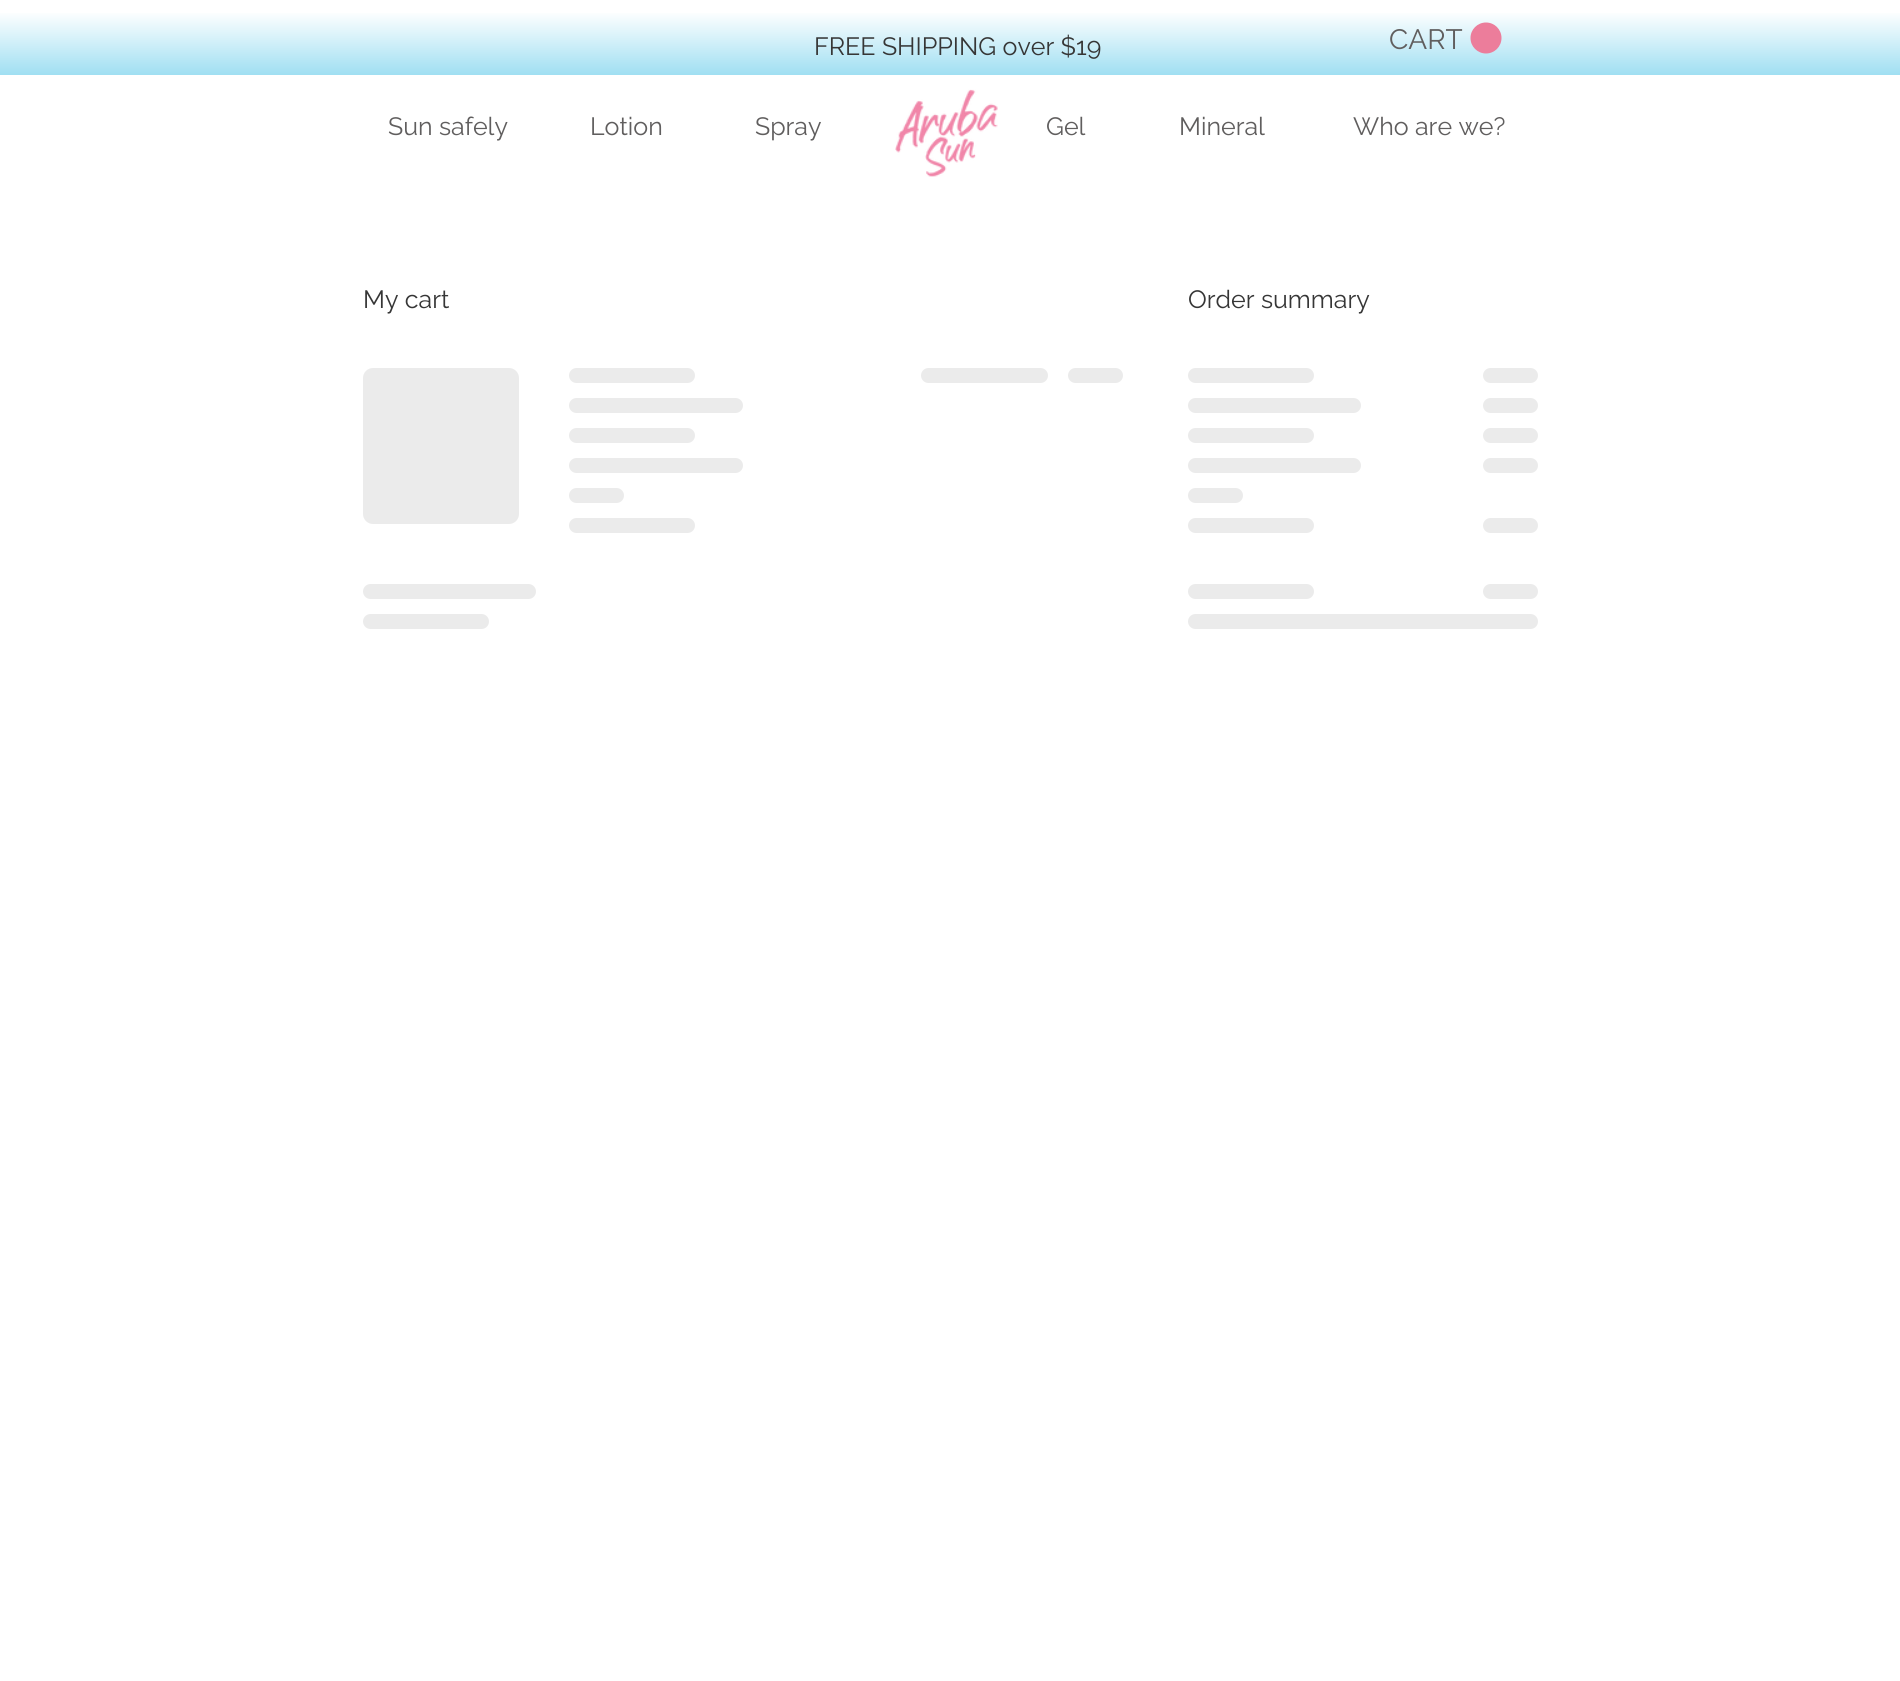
import math
import cairo

surface = cairo.ImageSurface(cairo.FORMAT_RGB24, 1900, 1681)
ctx = cairo.Context(surface)
options = cairo.FontOptions()
options.set_hint_metrics(cairo.HINT_METRICS_OFF)
options.set_hint_style(cairo.HINT_STYLE_NONE)
ctx.set_font_options(options)
ctx.set_miter_limit(4)


def set_color(code):
    ctx.set_source_rgb(*(v / 255 for v in bytes.fromhex(code[-6:])))


def draw_text(x, y, s, family, size, color, bold=False, italic=False):
    ctx.select_font_face(family, cairo.FONT_SLANT_ITALIC if italic else cairo.FONT_SLANT_NORMAL, cairo.FONT_WEIGHT_BOLD if bold else cairo.FONT_WEIGHT_NORMAL)
    ctx.set_font_size(size)
    set_color(color)
    ctx.move_to(x, y)
    ctx.show_text(s)


def rounded_rect(x, y, w, h, r):
    ctx.new_sub_path()
    for i, (u, v) in enumerate([(x + w - r, y + h - r), (x + r, y + h - r), (x + r, y + r), (x + w - r, y + r)]):
        ctx.arc(u, v, r, i * math.pi / 2, (i + 1) * math.pi / 2)
    ctx.close_path()


def draw_image(path, x, y, w, h):
    ctx.save()
    ctx.set_source_surface(cairo.ImageSurface.create_from_png(path), x, y)
    ctx.rectangle(x, y, w, h)
    ctx.fill()
    ctx.restore()


set_color("#ffffff")
ctx.paint()
gradient = cairo.LinearGradient(950, 75, 950, 11)
gradient.add_color_stop_rgba(0, 0.627, 0.875, 0.949, 1)
gradient.add_color_stop_rgba(1, 1, 1, 1, 1)
ctx.set_source(gradient)
ctx.rectangle(0, 13, 1900, 62)
ctx.fill()
draw_text(814, 55, "FREE SHIPPING over $19", "Raleway", 25, "#363636")
set_color("#ec7d9b")
ctx.new_path()
ctx.arc(1486, 38, 15.5, 0, 2 * math.pi)
ctx.fill()
draw_text(1389, 49, "CART", "Raleway", 28, "#605e5e")
draw_text(388, 135, "Sun safely", "Raleway", 25, "#605e5e")
draw_text(590, 135, "Lotion", "Raleway", 25, "#605e5e")
draw_text(755, 135, "Spray", "Raleway", 25, "#605e5e")
draw_image("assets/img1.png", 895, 89, 103, 88)
draw_text(1046, 135, "Gel", "Raleway", 25, "#605e5e")
draw_text(1179, 135, "Mineral", "Raleway", 25, "#605e5e")
draw_text(1353, 135, "Who are we?", "Raleway", 25, "#605e5e")
draw_text(363, 308, "My cart", "Raleway", 25, "#363636")
gradient = cairo.LinearGradient(363, 446, 988, 446)
gradient.add_color_stop_rgba(0.25, 0.922, 0.922, 0.922, 1)
gradient.add_color_stop_rgba(0.37, 0.843, 0.843, 0.843, 1)
gradient.add_color_stop_rgba(0.63, 0.922, 0.922, 0.922, 1)
ctx.set_source(gradient)
rounded_rect(363, 368, 156, 156, 10)
ctx.fill()
gradient = cairo.LinearGradient(569, 375, 1074, 375)
gradient.add_color_stop_rgba(0.25, 0.922, 0.922, 0.922, 1)
gradient.add_color_stop_rgba(0.37, 0.843, 0.843, 0.843, 1)
gradient.add_color_stop_rgba(0.63, 0.922, 0.922, 0.922, 1)
ctx.set_source(gradient)
rounded_rect(569, 368, 126, 15, 7.5)
ctx.fill()
gradient = cairo.LinearGradient(569, 405, 1264, 405)
gradient.add_color_stop_rgba(0.25, 0.922, 0.922, 0.922, 1)
gradient.add_color_stop_rgba(0.37, 0.843, 0.843, 0.843, 1)
gradient.add_color_stop_rgba(0.63, 0.922, 0.922, 0.922, 1)
ctx.set_source(gradient)
rounded_rect(569, 398, 174, 15, 7.5)
ctx.fill()
gradient = cairo.LinearGradient(569, 435, 1074, 435)
gradient.add_color_stop_rgba(0.25, 0.922, 0.922, 0.922, 1)
gradient.add_color_stop_rgba(0.37, 0.843, 0.843, 0.843, 1)
gradient.add_color_stop_rgba(0.63, 0.922, 0.922, 0.922, 1)
ctx.set_source(gradient)
rounded_rect(569, 428, 126, 15, 7.5)
ctx.fill()
gradient = cairo.LinearGradient(569, 465, 1264, 465)
gradient.add_color_stop_rgba(0.25, 0.922, 0.922, 0.922, 1)
gradient.add_color_stop_rgba(0.37, 0.843, 0.843, 0.843, 1)
gradient.add_color_stop_rgba(0.63, 0.922, 0.922, 0.922, 1)
ctx.set_source(gradient)
rounded_rect(569, 458, 174, 15, 7.5)
ctx.fill()
gradient = cairo.LinearGradient(569, 495, 789, 495)
gradient.add_color_stop_rgba(0.25, 0.922, 0.922, 0.922, 1)
gradient.add_color_stop_rgba(0.37, 0.843, 0.843, 0.843, 1)
gradient.add_color_stop_rgba(0.63, 0.922, 0.922, 0.922, 1)
ctx.set_source(gradient)
rounded_rect(569, 488, 55, 15, 7.5)
ctx.fill()
gradient = cairo.LinearGradient(569, 525, 1074, 525)
gradient.add_color_stop_rgba(0.25, 0.922, 0.922, 0.922, 1)
gradient.add_color_stop_rgba(0.37, 0.843, 0.843, 0.843, 1)
gradient.add_color_stop_rgba(0.63, 0.922, 0.922, 0.922, 1)
ctx.set_source(gradient)
rounded_rect(569, 518, 126, 15, 7.5)
ctx.fill()
gradient = cairo.LinearGradient(921, 375, 1426, 375)
gradient.add_color_stop_rgba(0.25, 0.922, 0.922, 0.922, 1)
gradient.add_color_stop_rgba(0.37, 0.843, 0.843, 0.843, 1)
gradient.add_color_stop_rgba(0.63, 0.922, 0.922, 0.922, 1)
ctx.set_source(gradient)
rounded_rect(921, 368, 127, 15, 7.5)
ctx.fill()
gradient = cairo.LinearGradient(1068, 375, 1288, 375)
gradient.add_color_stop_rgba(0.25, 0.922, 0.922, 0.922, 1)
gradient.add_color_stop_rgba(0.37, 0.843, 0.843, 0.843, 1)
gradient.add_color_stop_rgba(0.63, 0.922, 0.922, 0.922, 1)
ctx.set_source(gradient)
rounded_rect(1068, 368, 55, 15, 7.5)
ctx.fill()
gradient = cairo.LinearGradient(363, 591, 1058, 591)
gradient.add_color_stop_rgba(0.25, 0.922, 0.922, 0.922, 1)
gradient.add_color_stop_rgba(0.37, 0.843, 0.843, 0.843, 1)
gradient.add_color_stop_rgba(0.63, 0.922, 0.922, 0.922, 1)
ctx.set_source(gradient)
rounded_rect(363, 584, 173, 15, 7.5)
ctx.fill()
gradient = cairo.LinearGradient(363, 621, 868, 621)
gradient.add_color_stop_rgba(0.25, 0.922, 0.922, 0.922, 1)
gradient.add_color_stop_rgba(0.37, 0.843, 0.843, 0.843, 1)
gradient.add_color_stop_rgba(0.63, 0.922, 0.922, 0.922, 1)
ctx.set_source(gradient)
rounded_rect(363, 614, 126, 15, 7.5)
ctx.fill()
draw_text(1188, 308, "Order summary", "Raleway", 25, "#363636")
gradient = cairo.LinearGradient(1188, 375, 1693, 375)
gradient.add_color_stop_rgba(0.25, 0.922, 0.922, 0.922, 1)
gradient.add_color_stop_rgba(0.37, 0.843, 0.843, 0.843, 1)
gradient.add_color_stop_rgba(0.63, 0.922, 0.922, 0.922, 1)
ctx.set_source(gradient)
rounded_rect(1188, 368, 126, 15, 7.5)
ctx.fill()
gradient = cairo.LinearGradient(1483, 375, 1703, 375)
gradient.add_color_stop_rgba(0.25, 0.922, 0.922, 0.922, 1)
gradient.add_color_stop_rgba(0.37, 0.843, 0.843, 0.843, 1)
gradient.add_color_stop_rgba(0.63, 0.922, 0.922, 0.922, 1)
ctx.set_source(gradient)
rounded_rect(1483, 368, 55, 15, 7.5)
ctx.fill()
gradient = cairo.LinearGradient(1188, 405, 1883, 405)
gradient.add_color_stop_rgba(0.25, 0.922, 0.922, 0.922, 1)
gradient.add_color_stop_rgba(0.37, 0.843, 0.843, 0.843, 1)
gradient.add_color_stop_rgba(0.63, 0.922, 0.922, 0.922, 1)
ctx.set_source(gradient)
rounded_rect(1188, 398, 173, 15, 7.5)
ctx.fill()
gradient = cairo.LinearGradient(1483, 405, 1703, 405)
gradient.add_color_stop_rgba(0.25, 0.922, 0.922, 0.922, 1)
gradient.add_color_stop_rgba(0.37, 0.843, 0.843, 0.843, 1)
gradient.add_color_stop_rgba(0.63, 0.922, 0.922, 0.922, 1)
ctx.set_source(gradient)
rounded_rect(1483, 398, 55, 15, 7.5)
ctx.fill()
gradient = cairo.LinearGradient(1188, 435, 1693, 435)
gradient.add_color_stop_rgba(0.25, 0.922, 0.922, 0.922, 1)
gradient.add_color_stop_rgba(0.37, 0.843, 0.843, 0.843, 1)
gradient.add_color_stop_rgba(0.63, 0.922, 0.922, 0.922, 1)
ctx.set_source(gradient)
rounded_rect(1188, 428, 126, 15, 7.5)
ctx.fill()
gradient = cairo.LinearGradient(1483, 435, 1703, 435)
gradient.add_color_stop_rgba(0.25, 0.922, 0.922, 0.922, 1)
gradient.add_color_stop_rgba(0.37, 0.843, 0.843, 0.843, 1)
gradient.add_color_stop_rgba(0.63, 0.922, 0.922, 0.922, 1)
ctx.set_source(gradient)
rounded_rect(1483, 428, 55, 15, 7.5)
ctx.fill()
gradient = cairo.LinearGradient(1188, 465, 1883, 465)
gradient.add_color_stop_rgba(0.25, 0.922, 0.922, 0.922, 1)
gradient.add_color_stop_rgba(0.37, 0.843, 0.843, 0.843, 1)
gradient.add_color_stop_rgba(0.63, 0.922, 0.922, 0.922, 1)
ctx.set_source(gradient)
rounded_rect(1188, 458, 173, 15, 7.5)
ctx.fill()
gradient = cairo.LinearGradient(1483, 465, 1703, 465)
gradient.add_color_stop_rgba(0.25, 0.922, 0.922, 0.922, 1)
gradient.add_color_stop_rgba(0.37, 0.843, 0.843, 0.843, 1)
gradient.add_color_stop_rgba(0.63, 0.922, 0.922, 0.922, 1)
ctx.set_source(gradient)
rounded_rect(1483, 458, 55, 15, 7.5)
ctx.fill()
gradient = cairo.LinearGradient(1188, 495, 1408, 495)
gradient.add_color_stop_rgba(0.25, 0.922, 0.922, 0.922, 1)
gradient.add_color_stop_rgba(0.37, 0.843, 0.843, 0.843, 1)
gradient.add_color_stop_rgba(0.63, 0.922, 0.922, 0.922, 1)
ctx.set_source(gradient)
rounded_rect(1188, 488, 55, 15, 7.5)
ctx.fill()
gradient = cairo.LinearGradient(1188, 525, 1693, 525)
gradient.add_color_stop_rgba(0.25, 0.922, 0.922, 0.922, 1)
gradient.add_color_stop_rgba(0.37, 0.843, 0.843, 0.843, 1)
gradient.add_color_stop_rgba(0.63, 0.922, 0.922, 0.922, 1)
ctx.set_source(gradient)
rounded_rect(1188, 518, 126, 15, 7.5)
ctx.fill()
gradient = cairo.LinearGradient(1483, 525, 1703, 525)
gradient.add_color_stop_rgba(0.25, 0.922, 0.922, 0.922, 1)
gradient.add_color_stop_rgba(0.37, 0.843, 0.843, 0.843, 1)
gradient.add_color_stop_rgba(0.63, 0.922, 0.922, 0.922, 1)
ctx.set_source(gradient)
rounded_rect(1483, 518, 55, 15, 7.5)
ctx.fill()
gradient = cairo.LinearGradient(1188, 591, 1693, 591)
gradient.add_color_stop_rgba(0.25, 0.922, 0.922, 0.922, 1)
gradient.add_color_stop_rgba(0.37, 0.843, 0.843, 0.843, 1)
gradient.add_color_stop_rgba(0.63, 0.922, 0.922, 0.922, 1)
ctx.set_source(gradient)
rounded_rect(1188, 584, 126, 15, 7.5)
ctx.fill()
gradient = cairo.LinearGradient(1483, 591, 1703, 591)
gradient.add_color_stop_rgba(0.25, 0.922, 0.922, 0.922, 1)
gradient.add_color_stop_rgba(0.37, 0.843, 0.843, 0.843, 1)
gradient.add_color_stop_rgba(0.63, 0.922, 0.922, 0.922, 1)
ctx.set_source(gradient)
rounded_rect(1483, 584, 55, 15, 7.5)
ctx.fill()
gradient = cairo.LinearGradient(1188, 621, 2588, 621)
gradient.add_color_stop_rgba(0.25, 0.922, 0.922, 0.922, 1)
gradient.add_color_stop_rgba(0.37, 0.843, 0.843, 0.843, 1)
gradient.add_color_stop_rgba(0.63, 0.922, 0.922, 0.922, 1)
ctx.set_source(gradient)
rounded_rect(1188, 614, 350, 15, 7.5)
ctx.fill()
surface.write_to_png("output.png")
